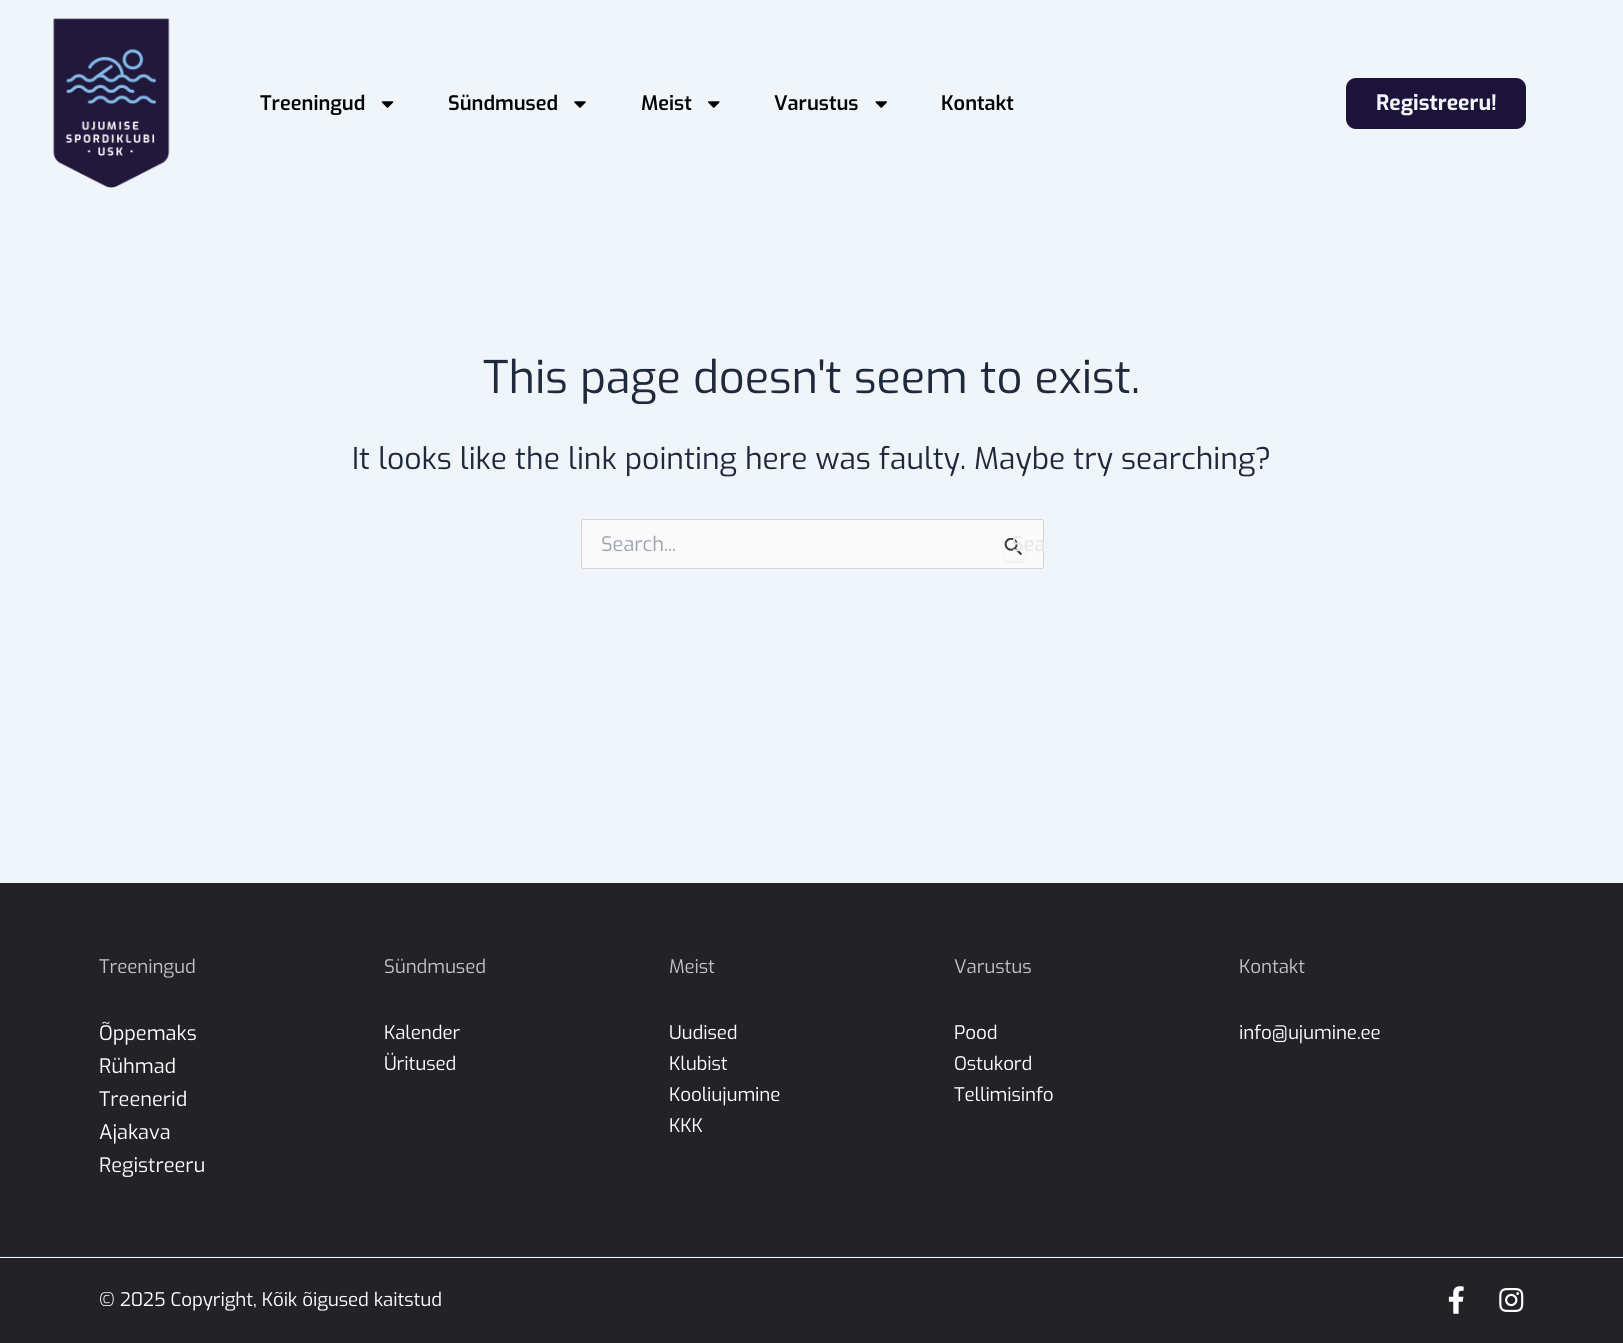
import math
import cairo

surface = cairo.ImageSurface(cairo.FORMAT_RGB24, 1623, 1343)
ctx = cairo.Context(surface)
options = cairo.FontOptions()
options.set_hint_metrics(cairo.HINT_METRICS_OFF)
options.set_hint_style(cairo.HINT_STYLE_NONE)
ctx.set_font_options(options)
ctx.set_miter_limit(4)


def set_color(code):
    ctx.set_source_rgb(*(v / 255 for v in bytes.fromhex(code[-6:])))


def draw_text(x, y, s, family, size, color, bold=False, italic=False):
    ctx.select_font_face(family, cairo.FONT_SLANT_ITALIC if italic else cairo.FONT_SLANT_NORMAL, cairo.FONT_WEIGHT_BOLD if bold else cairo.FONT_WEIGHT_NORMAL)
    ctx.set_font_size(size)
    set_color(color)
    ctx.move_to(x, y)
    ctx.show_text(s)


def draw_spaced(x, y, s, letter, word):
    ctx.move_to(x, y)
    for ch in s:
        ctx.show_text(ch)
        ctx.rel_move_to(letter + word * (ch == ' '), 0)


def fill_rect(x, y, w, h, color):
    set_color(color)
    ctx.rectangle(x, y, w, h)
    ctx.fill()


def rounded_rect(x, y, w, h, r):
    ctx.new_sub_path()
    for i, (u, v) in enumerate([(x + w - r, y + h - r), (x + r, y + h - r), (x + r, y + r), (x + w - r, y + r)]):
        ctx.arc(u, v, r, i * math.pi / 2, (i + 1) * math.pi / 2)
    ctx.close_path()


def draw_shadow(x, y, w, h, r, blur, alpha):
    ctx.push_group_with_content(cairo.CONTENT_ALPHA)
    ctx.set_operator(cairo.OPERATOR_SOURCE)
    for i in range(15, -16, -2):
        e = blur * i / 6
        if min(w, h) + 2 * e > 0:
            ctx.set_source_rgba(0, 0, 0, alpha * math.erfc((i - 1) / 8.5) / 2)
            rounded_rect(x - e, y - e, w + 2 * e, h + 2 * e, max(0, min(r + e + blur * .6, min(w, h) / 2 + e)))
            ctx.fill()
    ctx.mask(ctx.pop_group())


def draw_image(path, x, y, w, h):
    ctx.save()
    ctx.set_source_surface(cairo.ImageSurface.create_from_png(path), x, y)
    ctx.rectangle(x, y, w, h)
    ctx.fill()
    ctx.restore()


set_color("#f0f5fa")
ctx.paint()
draw_image("assets/img1.png", 53, 18, 117, 170)
draw_text(260, 110, "Treeningud", "Exo SemiBold", 20, "#030303")
draw_image("assets/img2.png", 381, 101, 13, 7)
draw_text(448, 110, "Sündmused", "Exo SemiBold", 20, "#030303")
draw_image("assets/img3.png", 574, 101, 12, 7)
draw_text(641, 110, "Meist", "Exo SemiBold", 20, "#030303")
draw_image("assets/img4.png", 708, 101, 12, 7)
draw_text(774, 110, "Varustus", "Exo SemiBold", 20, "#030303")
draw_image("assets/img5.png", 875, 101, 12, 7)
draw_text(941, 110, "Kontakt", "Exo SemiBold", 20, "#030303")
set_color("#1d123a")
rounded_rect(1346, 78, 180, 51, 10)
ctx.fill()
draw_text(1376, 110, "Registreeru!", "Exo", 21.25, "#f0f5fa", bold=True)
draw_text(483, 393, "This page doesn't seem to exist.", "Exo", 45, "#1e293b")
draw_text(352, 469, "It looks like the link pointing here was faulty. Maybe try searching?", "Exo", 30, "#1e293b")
set_color("#fafafa")
rounded_rect(581.5, 519.5, 462, 49, 2)
ctx.fill_preserve()
set_color("#d1d5db")
ctx.set_line_width(1)
ctx.stroke()
draw_text(601, 551, "Search...", "Exo", 20, "#9ca3af")
ctx.save()
ctx.set_fill_rule(cairo.FILL_RULE_EVEN_ODD)
ctx.new_path()
ctx.move_to(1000, 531)
ctx.line_to(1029, 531)
ctx.line_to(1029, 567)
ctx.line_to(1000, 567)
ctx.close_path()
ctx.move_to(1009, 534)
ctx.line_to(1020, 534)
ctx.curve_to(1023, 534, 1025, 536, 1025, 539)
ctx.line_to(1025, 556)
ctx.curve_to(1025, 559, 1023, 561, 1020, 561)
ctx.line_to(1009, 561)
ctx.curve_to(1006, 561, 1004, 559, 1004, 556)
ctx.line_to(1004, 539)
ctx.curve_to(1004, 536, 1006, 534, 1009, 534)
ctx.close_path()
ctx.clip()
set_color("#000000")
draw_shadow(1004, 535, 21, 28, 5, 1, 0.05)
ctx.restore()
draw_image("assets/img6.png", 1004, 538, 18, 18)
draw_text(1012, 551, "Sea", "Exo Medium", 20, "#e7e7e7")
fill_rect(0, 883, 1623, 373, "#232226")
ctx.select_font_face("Exo")
ctx.set_font_size(18.75)
set_color("#c0c2c4")
draw_spaced(99, 973, "Treeningud", -0.1, 0)
draw_text(99, 1040, "Õppemaks", "Exo", 20, "#ffffff")
draw_text(99, 1073, "Rühmad", "Exo", 20, "#ffffff")
draw_text(99, 1106, "Treenerid", "Exo", 20, "#ffffff")
draw_text(99, 1139, "Ajakava", "Exo", 20, "#ffffff")
draw_text(99, 1172, "Registreeru", "Exo", 20, "#ffffff")
ctx.set_font_size(18.75)
set_color("#c0c2c4")
draw_spaced(384, 973, "Sündmused", -0.1, 0)
set_color("#ffffff")
draw_spaced(384, 1039, "Kalender", -0.1, 0)
draw_spaced(384, 1070, "Üritused", -0.1, 0)
set_color("#c0c2c4")
draw_spaced(669, 973, "Meist", -0.1, 0)
set_color("#ffffff")
draw_spaced(669, 1039, "Uudised", -0.1, 0)
draw_spaced(669, 1070, "Klubist", -0.1, 0)
draw_spaced(669, 1101, "Kooliujumine", -0.1, 0)
draw_spaced(669, 1132, "KKK", -0.1, 0)
set_color("#c0c2c4")
draw_spaced(954, 973, "Varustus", -0.1, 0)
set_color("#ffffff")
draw_spaced(954, 1039, "Pood", -0.1, 0)
draw_spaced(954, 1070, "Ostukord", -0.1, 0)
draw_spaced(954, 1101, "Tellimisinfo", -0.1, 0)
set_color("#c0c2c4")
draw_spaced(1239, 973, "Kontakt", -0.1, 0)
set_color("#ffffff")
draw_spaced(1239, 1039, "info@ujumine.ee", -0.1, 0)
fill_rect(0, 1258, 1623, 85, "#232226")
fill_rect(0, 1256, 1623, 1, "#292f41")
set_color("#ffffff")
draw_spaced(99, 1306, "© 2025 Copyright, Kõik õigused kaitstud", -0.1, 0)
draw_image("assets/img7.png", 1448, 1286, 16, 28)
draw_image("assets/img8.png", 1499, 1287, 25, 25)
surface.write_to_png("output.png")
